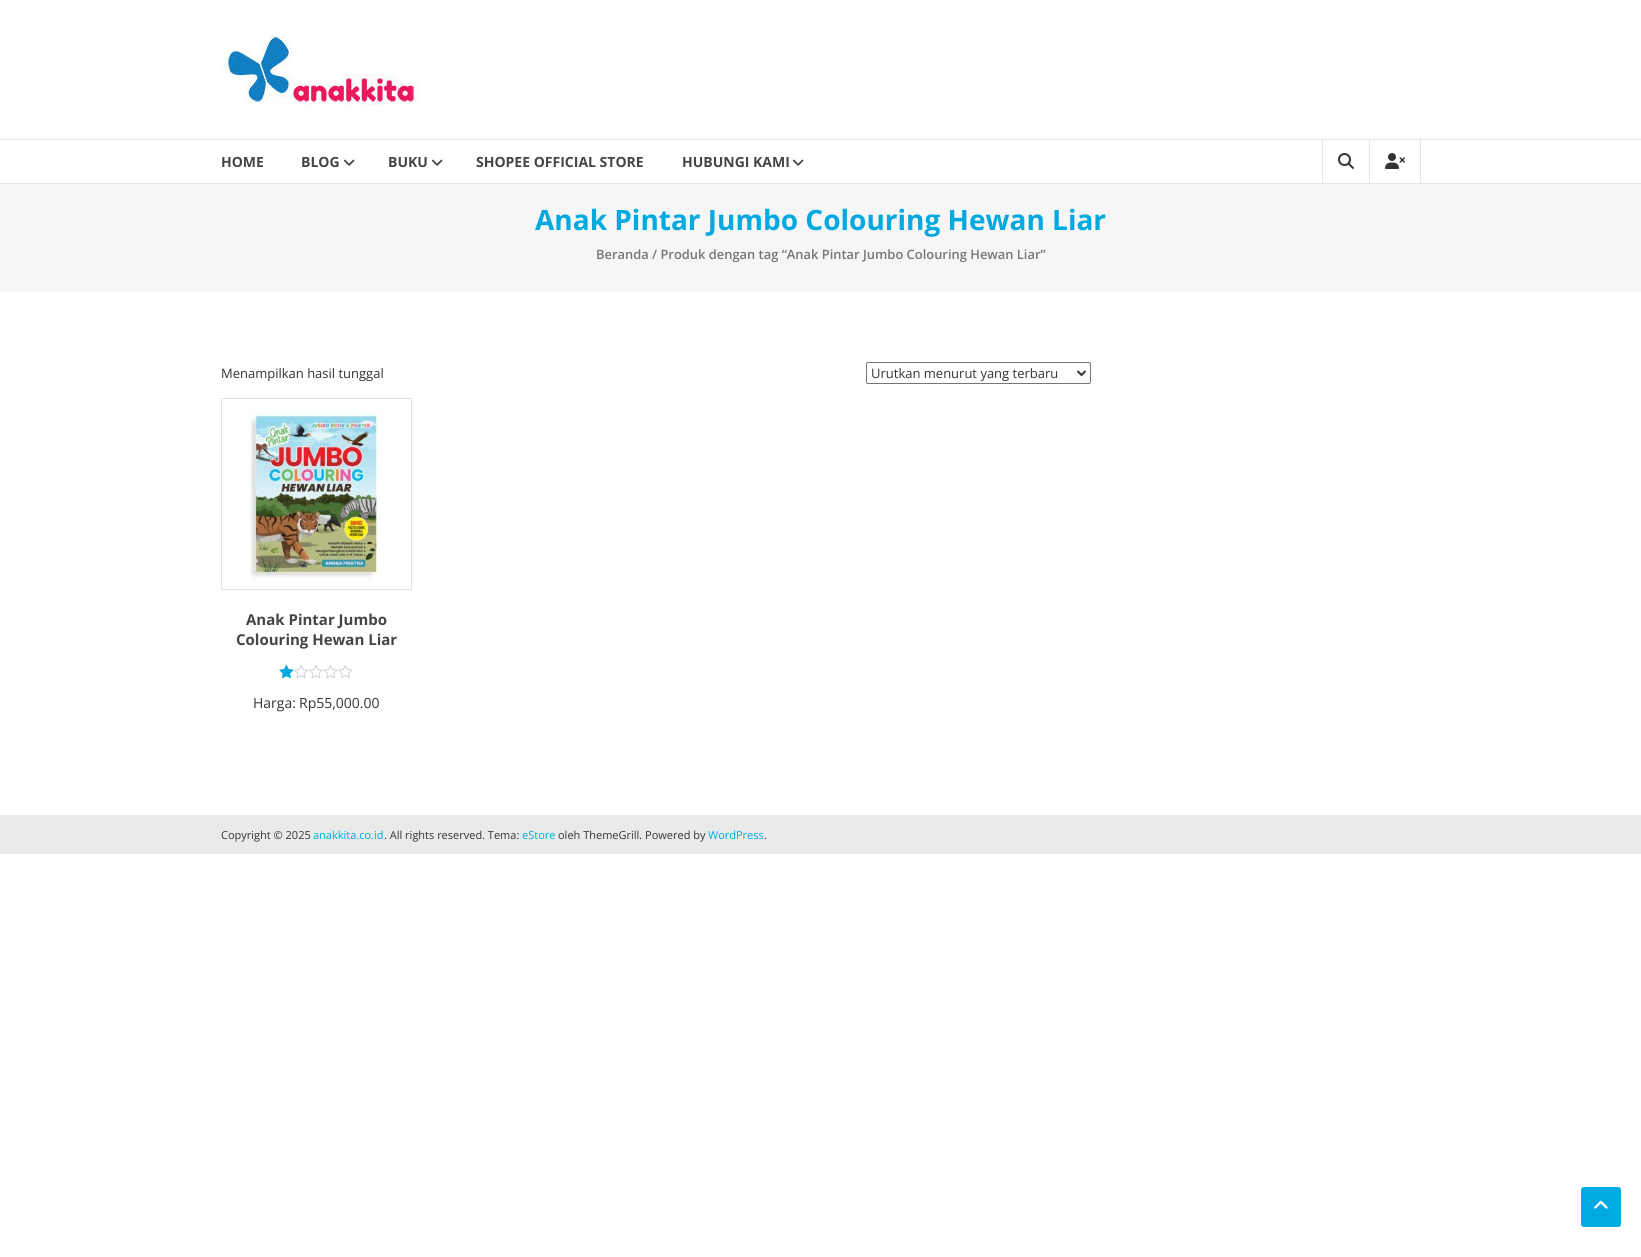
import math
import cairo

surface = cairo.ImageSurface(cairo.FORMAT_RGB24, 1641, 1257)
ctx = cairo.Context(surface)
options = cairo.FontOptions()
options.set_hint_metrics(cairo.HINT_METRICS_OFF)
options.set_hint_style(cairo.HINT_STYLE_NONE)
ctx.set_font_options(options)
ctx.set_miter_limit(4)


def set_color(code):
    ctx.set_source_rgb(*(v / 255 for v in bytes.fromhex(code[-6:])))


def draw_text(x, y, s, family, size, color, bold=False, italic=False):
    ctx.select_font_face(family, cairo.FONT_SLANT_ITALIC if italic else cairo.FONT_SLANT_NORMAL, cairo.FONT_WEIGHT_BOLD if bold else cairo.FONT_WEIGHT_NORMAL)
    ctx.set_font_size(size)
    set_color(color)
    ctx.move_to(x, y)
    ctx.show_text(s)


def fill_rect(x, y, w, h, color):
    set_color(color)
    ctx.rectangle(x, y, w, h)
    ctx.fill()


def rounded_rect(x, y, w, h, r):
    ctx.new_sub_path()
    for i, (u, v) in enumerate([(x + w - r, y + h - r), (x + r, y + h - r), (x + r, y + r), (x + w - r, y + r)]):
        ctx.arc(u, v, r, i * math.pi / 2, (i + 1) * math.pi / 2)
    ctx.close_path()


def draw_image(path, x, y, w, h):
    ctx.save()
    ctx.set_source_surface(cairo.ImageSurface.create_from_png(path), x, y)
    ctx.rectangle(x, y, w, h)
    ctx.fill()
    ctx.restore()


set_color("#ffffff")
ctx.paint()
draw_image("assets/img1.png", 221, 34, 200, 71)
fill_rect(0, 139, 1641, 1, "#e5e5e5")
fill_rect(0, 183, 1641, 1, "#e5e5e5")
draw_text(221, 167, "HOME", "Open Sans", 14, "#454545", bold=True)
draw_text(301, 167, "BLOG", "Open Sans", 14, "#454545", bold=True)
draw_image("assets/img2.png", 343, 159, 12, 7)
draw_text(388, 167, "BUKU", "Open Sans", 14, "#454545", bold=True)
draw_image("assets/img2.png", 431, 159, 12, 7)
draw_text(476, 167, "SHOPEE OFFICIAL STORE", "Open Sans", 14, "#454545", bold=True)
draw_text(682, 167, "HUBUNGI KAMI", "Open Sans", 14, "#454545", bold=True)
draw_image("assets/img2.png", 792, 159, 12, 7)
fill_rect(1322, 140, 1, 43, "#e5e5e5")
draw_image("assets/img3.png", 1338, 153, 16, 16)
fill_rect(1420, 140, 1, 43, "#e5e5e5")
fill_rect(1369, 140, 1, 43, "#e5e5e5")
draw_image("assets/img4.png", 1385, 153, 20, 16)
fill_rect(0, 184, 1641, 108, "#f6f6f6")
draw_text(535, 230, "Anak Pintar Jumbo Colouring Hewan Liar", "Open Sans", 28, "#00a9e0", bold=True)
draw_text(596, 259, "Beranda / Produk dengan tag “Anak Pintar Jumbo Colouring Hewan Liar”", "Open Sans SemiBold", 12.9, "#767676")
draw_text(221, 378, "Menampilkan hasil tunggal", "Open Sans", 13, "#333333")
rounded_rect(866.5, 362.5, 224, 21, 1.5)
set_color("#767676")
ctx.set_line_width(1)
ctx.stroke()
ctx.new_path()
ctx.move_to(1077.5, 371)
ctx.line_to(1081.5, 375)
ctx.line_to(1085.5, 371)
set_color("#333333")
ctx.set_line_width(2)
ctx.stroke()
draw_text(871, 378, "Urutkan menurut yang terbaru", "Open Sans", 13, "#333333")
ctx.rectangle(221.5, 398.5, 190, 191)
set_color("#e1e1e1")
ctx.set_line_width(1)
ctx.stroke()
draw_image("assets/img5.png", 250, 409, 133, 172)
draw_text(246, 625, "Anak Pintar Jumbo", "Open Sans", 15, "#454545", bold=True)
draw_text(236, 645, "Colouring Hewan Liar", "Open Sans", 15, "#454545", bold=True)
draw_image("assets/img6.png", 279, 664, 74, 14)
draw_image("assets/img7.png", 279, 664, 15, 14)
draw_text(253, 708, "Harga:", "Open Sans", 14, "#333333")
draw_text(299, 708, "Rp55,000.00", "Open Sans", 14, "#333333")
fill_rect(0, 815, 1641, 39, "#e9ebeb")
draw_text(221, 839, "Copyright © 2025", "Open Sans", 11, "#333333")
draw_text(313, 839, "anakkita.co.id", "Open Sans", 11, "#00a9e0")
draw_text(384, 839, ". All rights reserved. Tema:", "Open Sans", 11, "#333333")
draw_text(522, 839, "eStore", "Open Sans", 11, "#00a9e0")
draw_text(558, 839, "oleh ThemeGrill. Powered by", "Open Sans", 11, "#333333")
draw_text(708, 839, "WordPress", "Open Sans", 11, "#00a9e0")
draw_text(764, 839, ".", "Open Sans", 11, "#333333")
set_color("#00a9e0")
rounded_rect(1581, 1187, 40, 40, 3)
ctx.fill()
draw_image("assets/img8.png", 1594, 1200, 14, 9)
surface.write_to_png("output.png")
